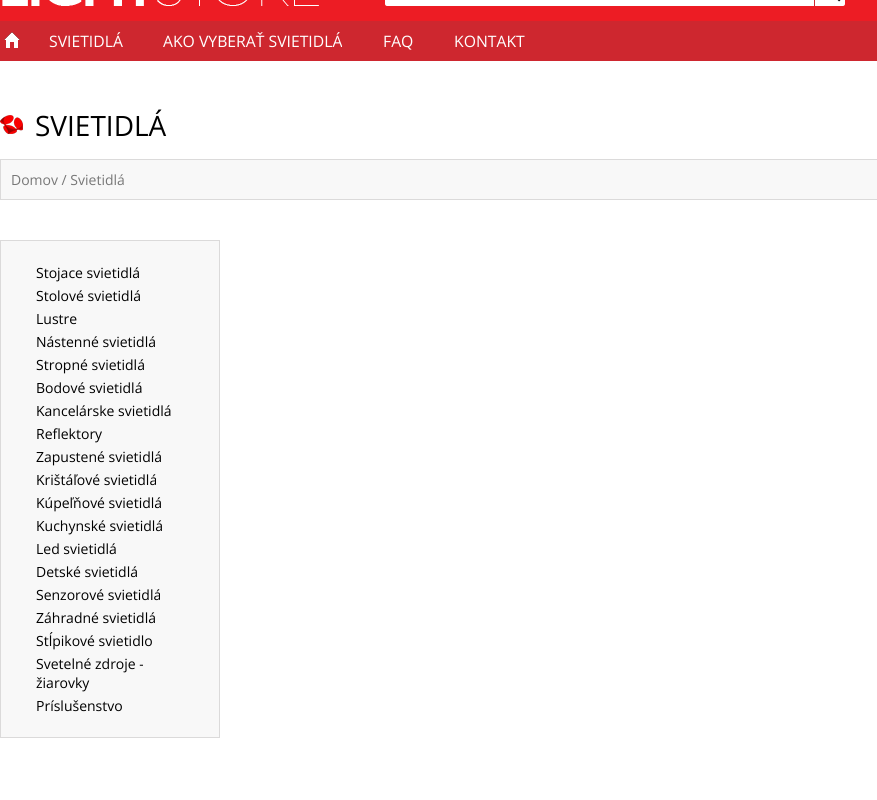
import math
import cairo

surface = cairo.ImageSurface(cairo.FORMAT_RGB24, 877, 800)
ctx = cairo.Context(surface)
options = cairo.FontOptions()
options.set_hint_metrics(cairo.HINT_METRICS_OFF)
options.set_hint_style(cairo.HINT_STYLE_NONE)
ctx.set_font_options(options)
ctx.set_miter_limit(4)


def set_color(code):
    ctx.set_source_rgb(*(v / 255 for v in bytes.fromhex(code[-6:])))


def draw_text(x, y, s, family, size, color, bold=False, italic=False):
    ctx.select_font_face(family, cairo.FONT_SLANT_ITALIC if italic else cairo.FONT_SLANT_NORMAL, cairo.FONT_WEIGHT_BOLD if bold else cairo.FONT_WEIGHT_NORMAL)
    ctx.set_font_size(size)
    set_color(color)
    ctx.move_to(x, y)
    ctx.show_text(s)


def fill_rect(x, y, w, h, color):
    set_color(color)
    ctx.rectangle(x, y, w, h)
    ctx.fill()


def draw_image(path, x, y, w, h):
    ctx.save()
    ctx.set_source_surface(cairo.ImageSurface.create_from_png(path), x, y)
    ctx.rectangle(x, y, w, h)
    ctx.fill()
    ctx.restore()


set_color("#ffffff")
ctx.paint()
fill_rect(0, 0, 877, 21, "#ed1c24")
draw_image("assets/img1.png", 2, 0, 317, 6)
set_color("#ffffff")
ctx.new_path()
ctx.move_to(387, -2)
ctx.line_to(815, -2)
ctx.line_to(815, 6)
ctx.line_to(387, 6)
ctx.curve_to(386, 6, 385, 5, 385, 4)
ctx.line_to(385, 0)
ctx.curve_to(385, -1, 386, -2, 387, -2)
ctx.close_path()
ctx.fill()
ctx.new_path()
ctx.move_to(815, -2)
ctx.line_to(843, -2)
ctx.curve_to(844, -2, 845, -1, 845, 0)
ctx.line_to(845, 4)
ctx.curve_to(845, 5, 844, 6, 843, 6)
ctx.line_to(815, 6)
ctx.close_path()
ctx.fill()
draw_image("assets/img2.png", 837, 0, 4, 2)
fill_rect(814, 0, 1, 6, "#ce272f")
fill_rect(0, 21, 877, 40, "#ce272f")
draw_image("assets/img3.png", 4, 32, 16, 16)
draw_text(49, 47, "SVIETIDLÁ", "Open Sans", 15.75, "#ffffff")
draw_text(163, 47, "AKO VYBERAŤ SVIETIDLÁ", "Open Sans", 15.75, "#ffffff")
draw_text(383, 47, "FAQ", "Open Sans", 15.75, "#ffffff")
draw_text(454, 47, "KONTAKT", "Open Sans", 15.75, "#ffffff")
draw_image("assets/img4.png", 0, 115, 23, 19)
draw_text(35, 136, "SVIETIDLÁ", "Open Sans", 28, "#000000")
set_color("#f8f8f8")
ctx.rectangle(0.5, 159.5, 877, 40)
ctx.fill_preserve()
set_color("#dbdada")
ctx.set_line_width(1)
ctx.stroke()
draw_text(11, 185, "Domov / Svietidlá", "Open Sans", 14, "#777777")
set_color("#f8f8f8")
ctx.rectangle(0.5, 240.5, 219, 497)
ctx.fill_preserve()
set_color("#dbdada")
ctx.stroke()
draw_text(36, 278, "Stojace svietidlá", "Open Sans", 14, "#000000")
draw_text(36, 301, "Stolové svietidlá", "Open Sans", 14, "#000000")
draw_text(36, 324, "Lustre", "Open Sans", 14, "#000000")
draw_text(36, 347, "Nástenné svietidlá", "Open Sans", 14, "#000000")
draw_text(36, 370, "Stropné svietidlá", "Open Sans", 14, "#000000")
draw_text(36, 393, "Bodové svietidlá", "Open Sans", 14, "#000000")
draw_text(36, 416, "Kancelárske svietidlá", "Open Sans", 14, "#000000")
draw_text(36, 439, "Reflektory", "Open Sans", 14, "#000000")
draw_text(36, 462, "Zapustené svietidlá", "Open Sans", 14, "#000000")
draw_text(36, 485, "Krištáľové svietidlá", "Open Sans", 14, "#000000")
draw_text(36, 508, "Kúpeľňové svietidlá", "Open Sans", 14, "#000000")
draw_text(36, 531, "Kuchynské svietidlá", "Open Sans", 14, "#000000")
draw_text(36, 554, "Led svietidlá", "Open Sans", 14, "#000000")
draw_text(36, 577, "Detské svietidlá", "Open Sans", 14, "#000000")
draw_text(36, 600, "Senzorové svietidlá", "Open Sans", 14, "#000000")
draw_text(36, 623, "Záhradné svietidlá", "Open Sans", 14, "#000000")
draw_text(36, 646, "Stĺpikové svietidlo", "Open Sans", 14, "#000000")
draw_text(36, 669, "Svetelné zdroje -", "Open Sans", 14, "#000000")
draw_text(36, 688, "žiarovky", "Open Sans", 14, "#000000")
draw_text(36, 711, "Príslušenstvo", "Open Sans", 14, "#000000")
surface.write_to_png("output.png")
